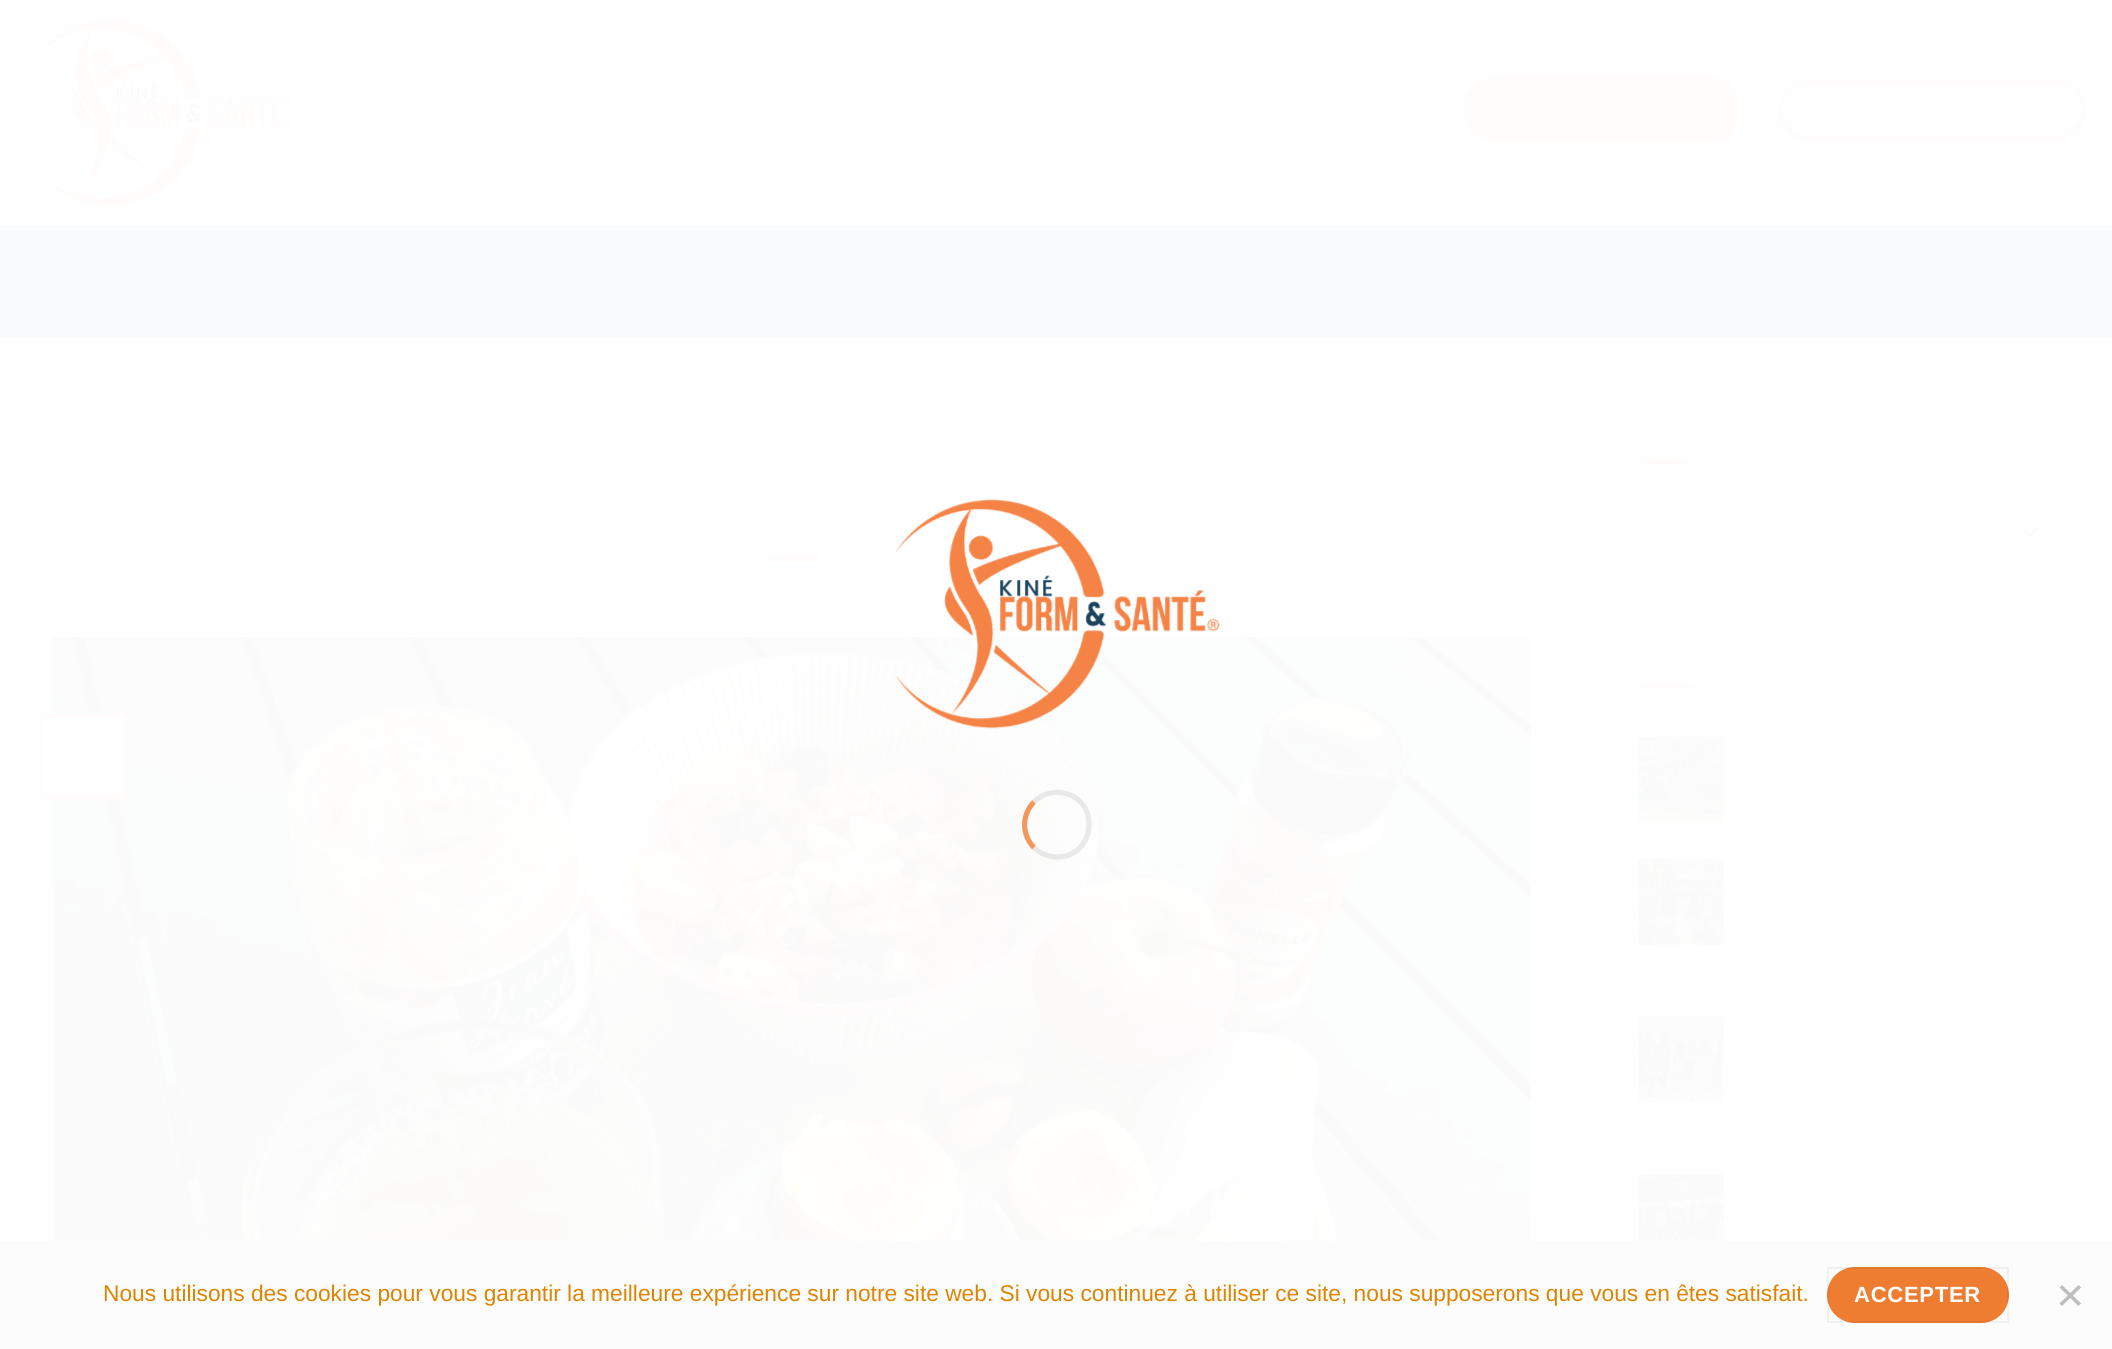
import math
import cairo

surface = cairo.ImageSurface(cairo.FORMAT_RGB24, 2112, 1349)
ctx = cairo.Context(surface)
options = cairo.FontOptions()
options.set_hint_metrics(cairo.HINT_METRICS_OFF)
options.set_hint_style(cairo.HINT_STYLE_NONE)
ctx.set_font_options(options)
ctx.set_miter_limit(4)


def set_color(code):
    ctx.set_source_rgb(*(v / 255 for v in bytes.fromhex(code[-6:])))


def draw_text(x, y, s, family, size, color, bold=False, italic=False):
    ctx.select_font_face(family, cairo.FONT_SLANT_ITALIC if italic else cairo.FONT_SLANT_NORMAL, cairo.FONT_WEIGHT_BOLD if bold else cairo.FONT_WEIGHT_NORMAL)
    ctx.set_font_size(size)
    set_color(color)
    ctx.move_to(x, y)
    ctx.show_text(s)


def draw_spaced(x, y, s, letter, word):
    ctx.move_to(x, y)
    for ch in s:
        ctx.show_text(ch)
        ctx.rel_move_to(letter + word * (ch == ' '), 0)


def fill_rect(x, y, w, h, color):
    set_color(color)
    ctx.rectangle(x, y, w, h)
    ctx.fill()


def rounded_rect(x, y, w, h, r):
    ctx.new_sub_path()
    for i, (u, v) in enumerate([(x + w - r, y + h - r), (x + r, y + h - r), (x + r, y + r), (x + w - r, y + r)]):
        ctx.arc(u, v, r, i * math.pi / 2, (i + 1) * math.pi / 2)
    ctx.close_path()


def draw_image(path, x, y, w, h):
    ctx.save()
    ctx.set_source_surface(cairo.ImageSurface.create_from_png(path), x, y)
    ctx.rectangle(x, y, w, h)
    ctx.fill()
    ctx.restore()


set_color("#ffffff")
ctx.paint()
draw_image("assets/img1.png", 31, 20, 264, 186)
set_color("#fffcfb")
rounded_rect(1463, 77, 278, 65, 32.5)
ctx.fill()
rounded_rect(1780, 81, 304, 57, 28.5)
ctx.set_line_width(4)
ctx.stroke()
fill_rect(0, 226, 2112, 112, "#fafbfc")
fill_rect(767, 557, 52, 5, "#fffcfb")
draw_image("assets/img2.png", 52, 637, 1480, 604)
fill_rect(53, 718, 69, 78, "#ffffff")
ctx.rectangle(42, 716, 82, 82)
set_color("#fffcfb")
ctx.stroke()
fill_rect(1638, 459, 53, 5, "#fffcfb")
ctx.new_path()
ctx.move_to(2023, 528.5)
ctx.line_to(2030, 535.5)
ctx.line_to(2037, 528.5)
set_color("#fbfbfb")
ctx.set_line_width(2.3)
ctx.set_line_cap(cairo.LINE_CAP_ROUND)
ctx.set_line_join(cairo.LINE_JOIN_ROUND)
ctx.stroke()
fill_rect(1638, 684, 53, 5, "#fffcfb")
draw_image("assets/img3.png", 1638, 736, 86, 87)
draw_image("assets/img4.png", 1638, 858, 86, 88)
draw_image("assets/img5.png", 1638, 1016, 86, 87)
draw_image("assets/img6.png", 1638, 1174, 86, 67)
draw_image("assets/img7.png", 895, 499, 325, 230)
ctx.new_path()
ctx.move_to(1034, 802)
ctx.curve_to(1041.5, 794, 1053, 791, 1063.5, 793)
ctx.curve_to(1101.5, 800.5, 1095.5, 857, 1057, 857)
ctx.curve_to(1048.5, 857, 1040, 853.5, 1034, 847.5)
ctx.set_source_rgba(0, 0, 0, 0.08)
ctx.set_line_width(5.2)
ctx.set_line_cap(cairo.LINE_CAP_BUTT)
ctx.set_line_join(cairo.LINE_JOIN_MITER)
ctx.stroke()
ctx.new_path()
ctx.move_to(1034, 847.5)
ctx.curve_to(1021.5, 835, 1021.5, 814.5, 1034, 802)
ctx.set_source_rgba(0.933, 0.49, 0.196, 0.78)
ctx.stroke()
fill_rect(0, 1241, 2112, 108, "#fcfcfc")
draw_text(103, 1301, "Nous utilisons des cookies pour vous garantir la meilleure expérience sur notre site web. Si vous continuez à utiliser ce site, nous supposerons que vous en êtes satisfait.", "Liberation Sans", 22.75, "#dd8500")
set_color("#ee7d32")
rounded_rect(1827, 1267, 182, 56, 28)
ctx.fill()
ctx.rectangle(1828, 1268, 180, 54)
ctx.set_source_rgba(0, 0, 0, 0.05)
ctx.set_line_width(2)
ctx.stroke()
ctx.select_font_face("Liberation Sans", cairo.FONT_SLANT_NORMAL, cairo.FONT_WEIGHT_BOLD)
ctx.set_font_size(22)
set_color("#ffffff")
draw_spaced(1854, 1302, "ACCEPTER", 0.75, 0)
set_color("#bebebe")
ctx.new_path()
ctx.move_to(2078.5, 1285)
ctx.line_to(2081, 1287.5)
ctx.line_to(2062, 1306)
ctx.line_to(2059.5, 1303.5)
ctx.close_path()
ctx.fill()
ctx.new_path()
ctx.move_to(2059.5, 1287.5)
ctx.line_to(2062, 1285)
ctx.line_to(2081, 1303.5)
ctx.line_to(2078.5, 1306)
ctx.close_path()
ctx.fill()
surface.write_to_png("output.png")
